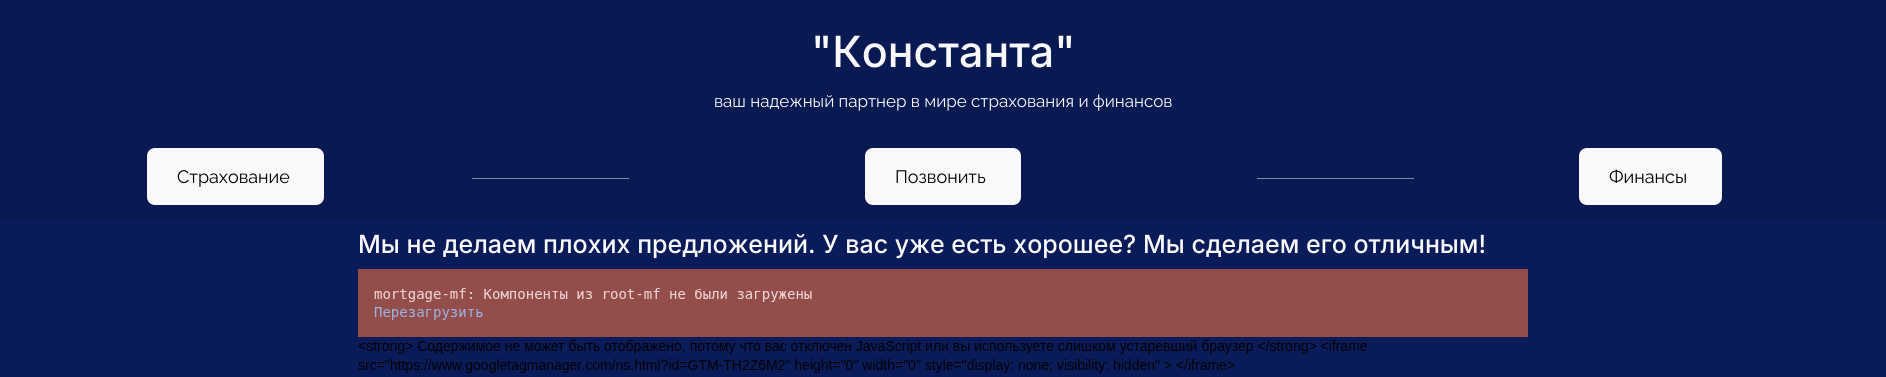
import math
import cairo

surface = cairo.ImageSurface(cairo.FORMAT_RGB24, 1886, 377)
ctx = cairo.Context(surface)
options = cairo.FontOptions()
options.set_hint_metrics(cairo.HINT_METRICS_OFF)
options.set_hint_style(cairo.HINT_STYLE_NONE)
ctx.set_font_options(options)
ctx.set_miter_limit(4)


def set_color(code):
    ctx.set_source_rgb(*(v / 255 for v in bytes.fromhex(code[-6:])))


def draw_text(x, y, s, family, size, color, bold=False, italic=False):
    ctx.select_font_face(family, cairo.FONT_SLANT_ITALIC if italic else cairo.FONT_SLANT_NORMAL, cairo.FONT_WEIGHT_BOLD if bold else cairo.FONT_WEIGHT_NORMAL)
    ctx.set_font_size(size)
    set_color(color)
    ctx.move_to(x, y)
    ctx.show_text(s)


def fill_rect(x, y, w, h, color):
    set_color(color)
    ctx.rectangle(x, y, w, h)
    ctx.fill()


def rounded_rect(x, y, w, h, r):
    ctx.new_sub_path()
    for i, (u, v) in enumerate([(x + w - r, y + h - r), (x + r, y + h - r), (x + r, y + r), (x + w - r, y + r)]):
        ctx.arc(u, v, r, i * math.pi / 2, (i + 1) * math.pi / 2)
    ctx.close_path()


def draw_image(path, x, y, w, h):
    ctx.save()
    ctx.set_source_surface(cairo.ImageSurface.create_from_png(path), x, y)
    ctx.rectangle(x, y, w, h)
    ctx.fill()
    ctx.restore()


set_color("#091952")
ctx.paint()
draw_text(811, 67, "\"Константа\"", "Inter Medium", 43, "#f9f9fb")
draw_text(714, 107, "ваш надежный партнер в мире страхования и финансов", "Raleway", 17, "#f9f9fb")
rounded_rect(147, 148, 177, 57, 8)
ctx.fill()
draw_text(177, 183, "Страхование", "Raleway", 18, "#000000")
ctx.save()
ctx.rectangle(472, 178, 157, 1)
ctx.clip()
ctx.new_path()
ctx.move_to(629, 178)
ctx.line_to(472, 178)
set_color("#f9f9fb")
ctx.set_line_width(1)
ctx.stroke()
ctx.restore()
set_color("#f9f9fb")
rounded_rect(865, 148, 156, 57, 8)
ctx.fill()
draw_text(895, 183, "Позвонить", "Raleway", 18, "#000000")
ctx.save()
ctx.rectangle(1257, 178, 157, 1)
ctx.clip()
ctx.new_path()
ctx.move_to(1414, 178)
ctx.line_to(1257, 178)
set_color("#f9f9fb")
ctx.set_line_width(1)
ctx.stroke()
ctx.restore()
set_color("#f9f9fb")
rounded_rect(1579, 148, 143, 57, 8)
ctx.fill()
draw_text(1609, 183, "Финансы", "Raleway", 18, "#000000")
fill_rect(0, 219, 1886, 158, "#0a1b59")
draw_text(358, 253, "Мы не делаем плохих предложений. У вас уже есть хорошее? Мы сделаем его отличным!", "Inter Medium", 25, "#f9f9fb")
draw_image("assets/img1.png", 358, 269, 1170, 104)
surface.write_to_png("output.png")
